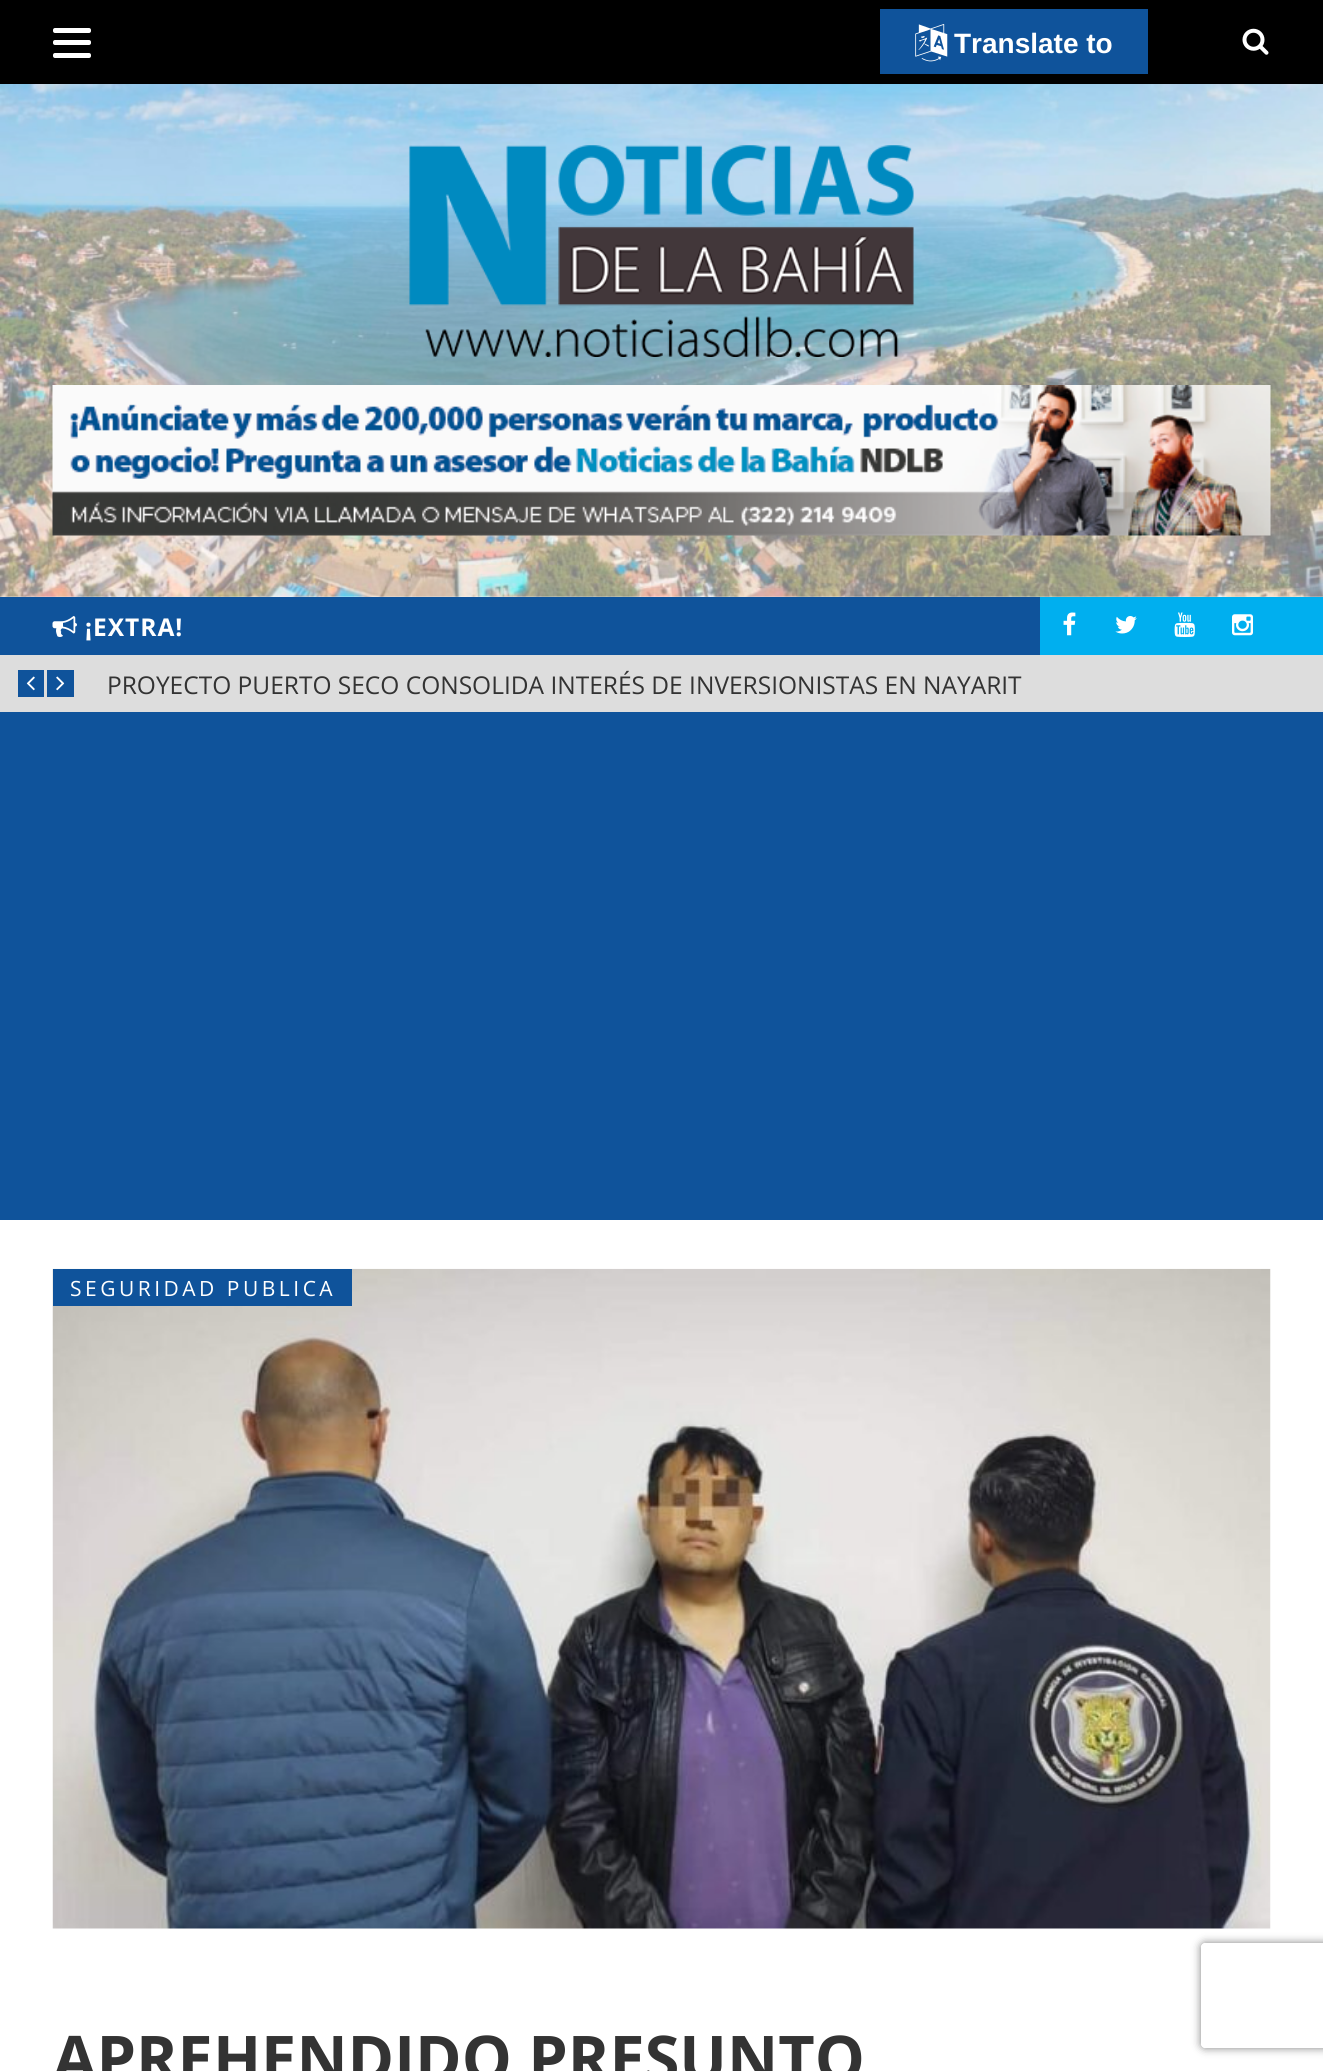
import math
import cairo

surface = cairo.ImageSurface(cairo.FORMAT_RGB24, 1323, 2071)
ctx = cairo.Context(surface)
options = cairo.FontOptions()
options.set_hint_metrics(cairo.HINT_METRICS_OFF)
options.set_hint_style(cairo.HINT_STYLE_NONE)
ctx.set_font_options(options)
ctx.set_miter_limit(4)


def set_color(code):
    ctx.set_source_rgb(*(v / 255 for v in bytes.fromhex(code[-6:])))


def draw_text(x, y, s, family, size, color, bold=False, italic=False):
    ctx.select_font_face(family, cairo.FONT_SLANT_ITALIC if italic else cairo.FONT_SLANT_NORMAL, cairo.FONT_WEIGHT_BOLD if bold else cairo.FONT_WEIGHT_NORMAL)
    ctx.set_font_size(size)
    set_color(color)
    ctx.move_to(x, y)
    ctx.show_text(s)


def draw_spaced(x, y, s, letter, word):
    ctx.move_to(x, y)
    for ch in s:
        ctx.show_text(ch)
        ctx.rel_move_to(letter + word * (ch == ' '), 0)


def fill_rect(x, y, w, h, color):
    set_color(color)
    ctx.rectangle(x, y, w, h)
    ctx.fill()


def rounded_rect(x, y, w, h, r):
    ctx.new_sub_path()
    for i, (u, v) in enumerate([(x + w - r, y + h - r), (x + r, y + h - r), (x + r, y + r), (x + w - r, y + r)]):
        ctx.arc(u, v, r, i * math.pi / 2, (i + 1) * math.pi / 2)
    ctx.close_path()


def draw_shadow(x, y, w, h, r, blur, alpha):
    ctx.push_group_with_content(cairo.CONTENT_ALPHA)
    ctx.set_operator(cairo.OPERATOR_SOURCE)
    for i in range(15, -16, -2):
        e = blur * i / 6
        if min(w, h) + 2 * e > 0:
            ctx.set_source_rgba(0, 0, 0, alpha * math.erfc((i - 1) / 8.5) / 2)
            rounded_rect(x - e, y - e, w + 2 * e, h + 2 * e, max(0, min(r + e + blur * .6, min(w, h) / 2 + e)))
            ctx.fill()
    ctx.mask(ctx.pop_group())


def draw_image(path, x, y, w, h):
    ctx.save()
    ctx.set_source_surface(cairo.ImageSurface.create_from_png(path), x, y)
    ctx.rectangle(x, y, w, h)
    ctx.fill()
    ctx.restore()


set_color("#ffffff")
ctx.paint()
fill_rect(0, 0, 1323, 84, "#000000")
fill_rect(880, 9, 268, 65, "#0f539b")
draw_image("assets/img1.png", 915, 24, 33, 38)
draw_text(954, 53, "Translate to", "Liberation Sans", 28, "#ffffff", bold=True)
rounded_rect(53, 28, 38, 5, 2)
ctx.fill()
rounded_rect(53, 40, 38, 5, 2)
ctx.fill()
rounded_rect(53, 53, 38, 5, 2)
ctx.fill()
draw_image("assets/img2.png", 1242, 28, 27, 27)
draw_image("assets/img3.png", 0, 84, 1323, 513)
draw_image("assets/img4.png", 409, 145, 505, 212)
draw_image("assets/img5.png", 52, 385, 1219, 151)
fill_rect(0, 712, 1323, 508, "#0f539b")
fill_rect(0, 655, 1323, 57, "#dddddd")
fill_rect(0, 597, 1040, 58, "#0f539b")
draw_image("assets/img6.png", 52, 616, 25, 21)
ctx.select_font_face("Open Sans", cairo.FONT_SLANT_NORMAL, cairo.FONT_WEIGHT_BOLD)
ctx.set_font_size(24.5)
set_color("#ffffff")
draw_spaced(85, 636, "¡EXTRA!", 1, 0)
fill_rect(18, 670, 26, 27, "#0f539b")
draw_image("assets/img7.png", 26, 676, 9, 15)
fill_rect(47, 670, 27, 27, "#0f539b")
draw_image("assets/img8.png", 56, 676, 9, 15)
draw_text(107, 694, "PROYECTO PUERTO SECO CONSOLIDA INTERÉS DE INVERSIONISTAS EN NAYARIT", "Open Sans", 24.5, "#333333")
fill_rect(1040, 597, 283, 58, "#00afef")
draw_image("assets/img9.png", 1063, 612, 13, 24)
draw_image("assets/img10.png", 1115, 616, 22, 18)
draw_image("assets/img11.png", 1174, 612, 21, 25)
draw_image("assets/img12.png", 1232, 614, 21, 22)
draw_image("assets/img13.png", 52, 1268, 1219, 661)
fill_rect(53, 1269, 299, 37, "#0f539b")
ctx.set_font_size(21)
set_color("#ffffff")
draw_spaced(70, 1296, "SEGURIDAD PUBLICA", 3.5, 0)
draw_text(53, 2081, "APREHENDIDO PRESUNTO", "Open Sans", 63, "#333333", bold=True)
ctx.save()
ctx.set_fill_rule(cairo.FILL_RULE_EVEN_ODD)
ctx.new_path()
ctx.move_to(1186, 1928)
ctx.line_to(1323, 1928)
ctx.line_to(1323, 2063)
ctx.line_to(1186, 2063)
ctx.close_path()
ctx.move_to(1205, 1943)
ctx.line_to(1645, 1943)
ctx.curve_to(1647, 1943, 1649, 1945, 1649, 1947)
ctx.line_to(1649, 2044)
ctx.curve_to(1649, 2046, 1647, 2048, 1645, 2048)
ctx.line_to(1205, 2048)
ctx.curve_to(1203, 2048, 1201, 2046, 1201, 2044)
ctx.line_to(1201, 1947)
ctx.curve_to(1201, 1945, 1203, 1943, 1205, 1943)
ctx.close_path()
ctx.clip()
set_color("#808080")
draw_shadow(1201, 1943, 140, 105, 4, 4.5, 1)
ctx.restore()
surface.write_to_png("output.png")
